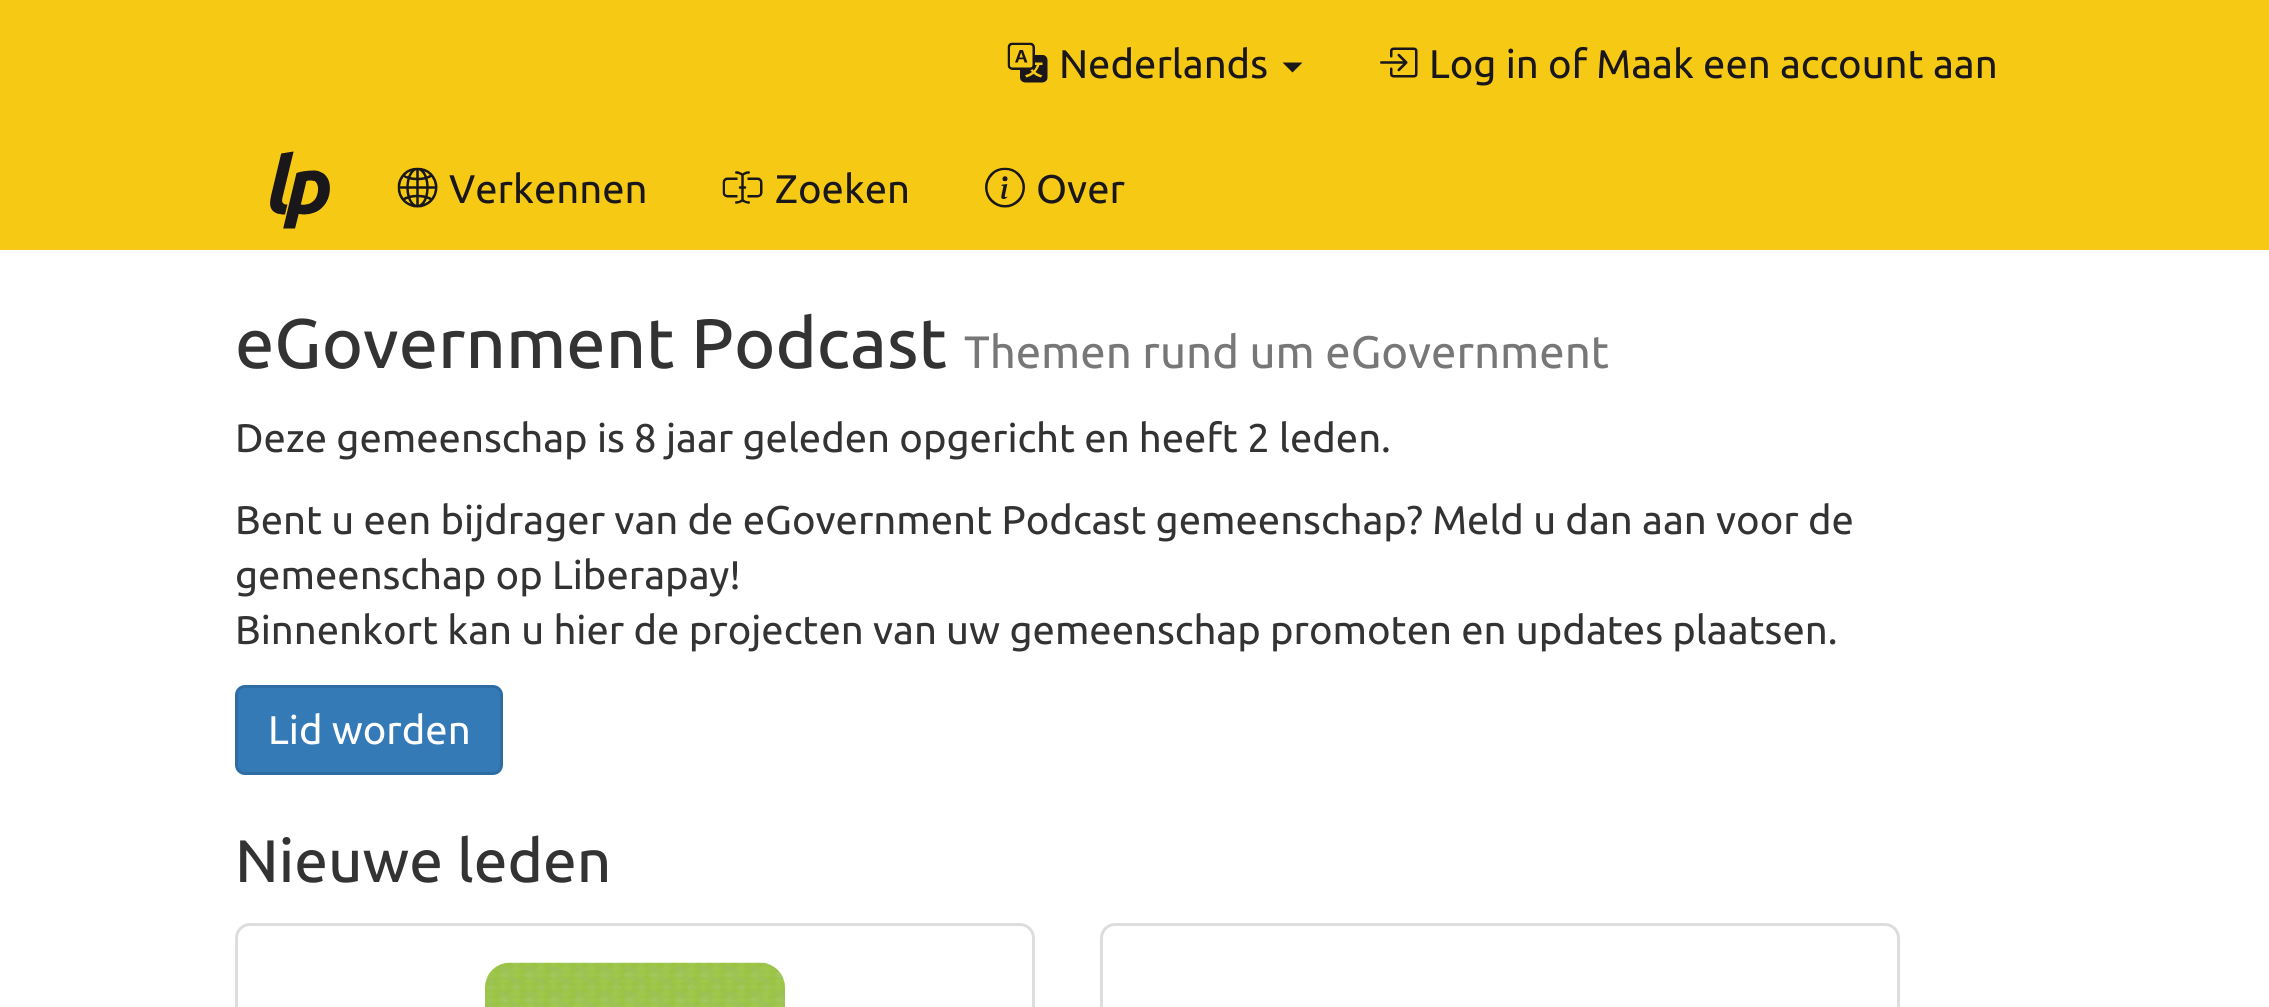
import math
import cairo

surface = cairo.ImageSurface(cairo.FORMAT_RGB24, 2269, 1007)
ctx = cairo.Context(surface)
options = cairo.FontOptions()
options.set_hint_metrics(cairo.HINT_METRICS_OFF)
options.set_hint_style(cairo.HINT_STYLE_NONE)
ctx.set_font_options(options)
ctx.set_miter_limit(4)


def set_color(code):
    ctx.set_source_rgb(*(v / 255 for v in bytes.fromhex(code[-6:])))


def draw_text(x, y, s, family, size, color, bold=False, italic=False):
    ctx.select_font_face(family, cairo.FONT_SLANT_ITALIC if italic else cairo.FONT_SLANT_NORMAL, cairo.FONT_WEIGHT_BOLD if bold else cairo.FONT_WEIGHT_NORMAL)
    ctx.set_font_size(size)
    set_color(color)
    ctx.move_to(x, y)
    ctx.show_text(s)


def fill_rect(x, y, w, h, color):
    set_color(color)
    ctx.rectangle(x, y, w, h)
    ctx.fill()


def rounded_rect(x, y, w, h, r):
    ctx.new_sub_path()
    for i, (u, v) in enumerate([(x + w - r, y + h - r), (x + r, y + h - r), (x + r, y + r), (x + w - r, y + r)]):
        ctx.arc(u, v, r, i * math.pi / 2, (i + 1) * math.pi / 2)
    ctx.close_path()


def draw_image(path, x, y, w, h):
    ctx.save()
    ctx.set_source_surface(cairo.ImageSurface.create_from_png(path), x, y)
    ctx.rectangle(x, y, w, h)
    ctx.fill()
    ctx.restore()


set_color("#ffffff")
ctx.paint()
fill_rect(0, 0, 2269, 250, "#f6c915")
draw_image("assets/img1.png", 1007, 42, 41, 41)
draw_text(1059, 78, "Nederlands", "Ubuntu", 40, "#1a171b")
ctx.new_path()
ctx.move_to(1282.5, 62.5)
ctx.line_to(1302.5, 62.5)
ctx.line_to(1292.5, 72.5)
ctx.close_path()
ctx.fill()
draw_image("assets/img2.png", 1380, 47, 38, 31)
draw_text(1429, 78, "Log in of Maak een account aan", "Ubuntu", 40, "#1a171b")
draw_image("assets/img3.png", 270, 151, 60, 78)
draw_image("assets/img4.png", 397, 167, 41, 41)
draw_text(449, 203, "Verkennen", "Ubuntu", 40, "#1a171b")
draw_image("assets/img5.png", 722, 171, 41, 33)
draw_text(775, 203, "Zoeken", "Ubuntu", 40, "#1a171b")
draw_image("assets/img6.png", 985, 167, 40, 41)
draw_text(1036, 203, "Over", "Ubuntu", 40, "#1a171b")
draw_text(235, 368, "eGovernment Podcast", "Ubuntu Medium", 70, "#333333")
draw_text(964, 368, "Themen rund um eGovernment", "Ubuntu", 45.5, "#777777")
draw_text(235, 452, "Deze gemeenschap is 8 jaar geleden opgericht en heeft 2 leden.", "Ubuntu", 40, "#333333")
draw_text(235, 534, "Bent u een bijdrager van de eGovernment Podcast gemeenschap? Meld u dan aan voor de", "Ubuntu", 40, "#333333")
draw_text(235, 589, "gemeenschap op Liberapay!", "Ubuntu", 40, "#333333")
draw_text(235, 644, "Binnenkort kan u hier de projecten van uw gemeenschap promoten en updates plaatsen.", "Ubuntu", 40, "#333333")
set_color("#337ab7")
rounded_rect(236.5, 686.5, 265, 87, 8.5)
ctx.fill_preserve()
set_color("#2e6da4")
ctx.set_line_width(3)
ctx.stroke()
draw_text(268, 744, "Lid worden", "Ubuntu", 40, "#ffffff")
draw_text(235, 882, "Nieuwe leden", "Ubuntu Medium", 60, "#333333")
rounded_rect(236.5, 924.5, 797, 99, 13.5)
set_color("#dddddd")
ctx.stroke()
draw_image("assets/img7.png", 485, 962, 300, 45)
rounded_rect(1101.5, 924.5, 797, 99, 13.5)
ctx.stroke()
surface.write_to_png("output.png")
